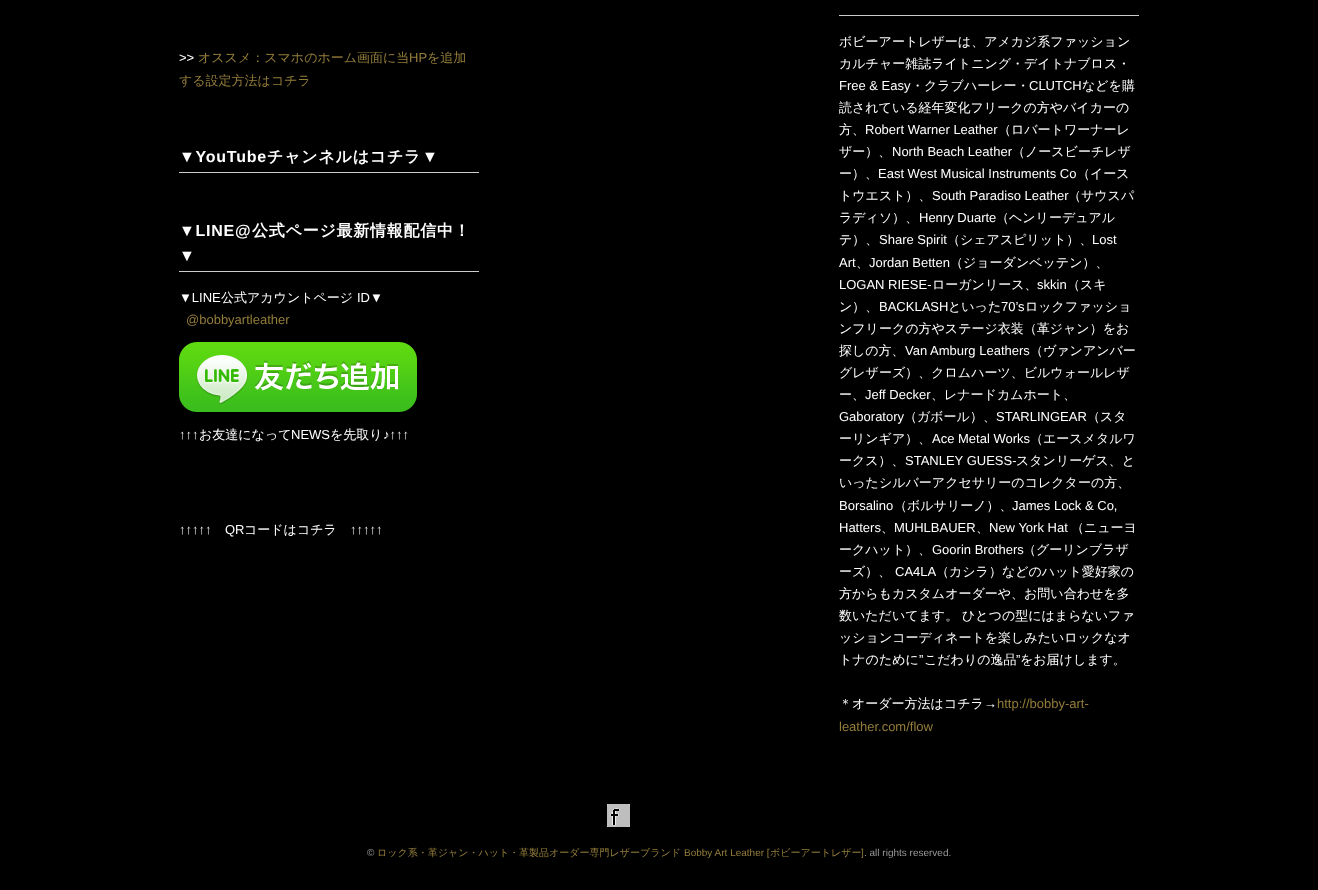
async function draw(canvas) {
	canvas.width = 1318;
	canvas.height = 890;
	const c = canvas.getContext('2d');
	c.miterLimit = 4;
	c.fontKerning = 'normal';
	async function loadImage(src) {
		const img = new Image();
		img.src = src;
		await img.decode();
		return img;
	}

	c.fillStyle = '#000';
	c.fillRect(0, 0, 1318, 890);
	c.font = '13px Liberation Sans';
	c.fillStyle = '#fff';
	c.fillText('>>', 179, 62);
	c.font = '500 13px WenQuanYi Zen Hei';
	c.fillStyle = '#947d3a';
	c.fillText('オススメ：スマホのホーム画面に当', 198, 62);
	c.font = '13px Liberation Sans';
	c.fillText('HP', 409, 62);
	c.font = '500 13px WenQuanYi Zen Hei';
	c.fillText('を追加', 427, 62);
	c.fillText('する設定方法はコチラ', 179, 85);
	c.fillStyle = '#ccc';
	c.fillRect(179, 172, 300, 1);
	c.letterSpacing = '0.75px';
	c.font = 'bold 16px Liberation Sans';
	c.fillStyle = '#fff';
	c.fillText('▼YouTube', 179, 162);
	c.font = 'bold 16px WenQuanYi Zen Hei';
	c.fillText('チャンネルはコチラ', 267, 162);
	c.font = 'bold 16px Liberation Sans';
	c.fillText('▼', 422, 162);
	c.fillStyle = '#ccc';
	c.fillRect(179, 271, 300, 1);
	c.fillStyle = '#fff';
	c.fillText('▼LINE@', 179, 236);
	c.font = 'bold 16px WenQuanYi Zen Hei';
	c.fillText('公式ページ最新情報配信中！', 252, 236);
	c.font = 'bold 16px Liberation Sans';
	c.fillText('▼', 179, 261);
	c.letterSpacing = '0px';
	c.font = '13px Liberation Sans';
	c.fillText('▼LINE', 179, 302);
	c.font = '500 13px WenQuanYi Zen Hei';
	c.fillText('公式アカウントページ', 221, 302);
	c.font = '13px Liberation Sans';
	c.fillText('ID▼', 357, 302);
	c.fillStyle = '#947d3a';
	c.fillText('@bobbyartleather', 186, 324);
	c.drawImage(await loadImage('img1.png'), 179, 342, 238, 70);
	c.fillStyle = '#fff';
	c.fillText('↑↑↑', 179, 439);
	c.font = '500 13px WenQuanYi Zen Hei';
	c.fillText('お友達になって', 199, 439);
	c.font = '13px Liberation Sans';
	c.fillText('NEWS', 291, 439);
	c.font = '500 13px WenQuanYi Zen Hei';
	c.fillText('を先取り', 330, 439);
	c.font = '13px Liberation Sans';
	for (const [text, x, y] of [
		['♪↑↑↑', 383, 439],
		['↑↑↑↑↑', 179, 534],
		['QR', 225, 534],
	]) {
		c.fillText(text, x, y);
	}
	c.font = '500 13px WenQuanYi Zen Hei';
	c.fillText('コードはコチラ', 244, 534);
	c.font = '13px Liberation Sans';
	c.fillText('↑↑↑↑↑', 350, 534);
	c.fillStyle = '#ccc';
	c.fillRect(839, 15, 300, 1);
	c.font = '500 13px WenQuanYi Zen Hei';
	c.fillStyle = '#fff';
	c.fillText('ボビーアートレザーは、アメカジ系ファッション', 839, 46);
	c.fillText('カルチャー雑誌ライトニング・デイトナブロス・', 839, 68);
	c.font = '13px Liberation Sans';
	c.fillText('Free & Easy', 839, 90);
	c.font = '500 13px WenQuanYi Zen Hei';
	c.fillText('・クラブハーレー・', 911, 90);
	c.font = '13px Liberation Sans';
	c.fillText('CLUTCH', 1029, 90);
	c.font = '500 13px WenQuanYi Zen Hei';
	for (const [text, x, y] of [
		['などを購', 1082, 90],
		['読されている経年変化フリークの方やバイカーの', 839, 112],
		['方、', 839, 134],
	]) {
		c.fillText(text, x, y);
	}
	c.font = '13px Liberation Sans';
	c.fillText('Robert Warner Leather', 865, 134);
	c.font = '500 13px WenQuanYi Zen Hei';
	c.fillText('（ロバートワーナーレ', 998, 134);
	c.fillText('ザー）、', 839, 156);
	c.font = '13px Liberation Sans';
	c.fillText('North Beach Leather', 892, 156);
	c.font = '500 13px WenQuanYi Zen Hei';
	c.fillText('（ノースビーチレザ', 1012, 156);
	c.fillText('ー）、', 839, 178);
	c.font = '13px Liberation Sans';
	c.fillText('East West Musical Instruments Co', 878, 178);
	c.font = '500 13px WenQuanYi Zen Hei';
	c.fillText('（イース', 1077, 178);
	c.fillText('トウエスト）、', 839, 200);
	c.font = '13px Liberation Sans';
	c.fillText('South Paradiso Leather', 932, 200);
	c.font = '500 13px WenQuanYi Zen Hei';
	c.fillText('（サウスパ', 1068, 200);
	c.fillText('ラディソ）、', 839, 222);
	c.font = '13px Liberation Sans';
	c.fillText('Henry Duarte', 919, 222);
	c.font = '500 13px WenQuanYi Zen Hei';
	c.fillText('（ヘンリーデュアル', 996, 222);
	c.fillText('テ）、', 839, 244);
	c.font = '13px Liberation Sans';
	c.fillText('Share Spirit', 879, 244);
	c.font = '500 13px WenQuanYi Zen Hei';
	c.fillText('（シェアスピリット）、', 947, 244);
	c.font = '13px Liberation Sans';
	c.fillText('Lost', 1092, 244);
	c.fillText('Art', 839, 267);
	c.font = '500 13px WenQuanYi Zen Hei';
	c.fillText('、', 856, 267);
	c.font = '13px Liberation Sans';
	c.fillText('Jordan Betten', 869, 267);
	c.font = '500 13px WenQuanYi Zen Hei';
	c.fillText('（ジョーダンベッテン）、', 950, 267);
	c.font = '13px Liberation Sans';
	c.fillText('LOGAN RIESE-', 839, 289);
	c.font = '500 13px WenQuanYi Zen Hei';
	c.fillText('ローガンリース、', 932, 289);
	c.font = '13px Liberation Sans';
	c.fillText('skkin', 1037, 289);
	c.font = '500 13px WenQuanYi Zen Hei';
	c.fillText('（スキ', 1067, 289);
	c.fillText('ン）、', 839, 311);
	c.font = '13px Liberation Sans';
	c.fillText('BACKLASH', 879, 311);
	c.font = '500 13px WenQuanYi Zen Hei';
	c.fillText('といった', 948, 311);
	c.font = '13px Liberation Sans';
	c.fillText('70’s', 1001, 311);
	c.font = '500 13px WenQuanYi Zen Hei';
	for (const [text, x, y] of [
		['ロックファッショ', 1025, 311],
		['ンフリークの方やステージ衣装（革ジャン）をお', 839, 333],
		['探しの方、', 839, 355],
	]) {
		c.fillText(text, x, y);
	}
	c.font = '13px Liberation Sans';
	c.fillText('Van Amburg Leathers', 905, 355);
	c.font = '500 13px WenQuanYi Zen Hei';
	for (const [text, x, y] of [
		['（ヴァンアンバー', 1030, 355],
		['グレザーズ）、クロムハーツ、ビルウォールレザ', 839, 377],
		['ー、', 839, 399],
	]) {
		c.fillText(text, x, y);
	}
	c.font = '13px Liberation Sans';
	c.fillText('Jeff Decker', 865, 399);
	c.font = '500 13px WenQuanYi Zen Hei';
	c.fillText('、レナードカムホート、', 931, 399);
	c.font = '13px Liberation Sans';
	c.fillText('Gaboratory', 839, 421);
	c.font = '500 13px WenQuanYi Zen Hei';
	c.fillText('（ガボール）、', 904, 421);
	c.font = '13px Liberation Sans';
	c.fillText('STARLINGEAR', 996, 421);
	c.font = '500 13px WenQuanYi Zen Hei';
	c.fillText('（スタ', 1087, 421);
	c.fillText('ーリンギア）、', 839, 443);
	c.font = '13px Liberation Sans';
	c.fillText('Ace Metal Works', 932, 443);
	c.font = '500 13px WenQuanYi Zen Hei';
	c.fillText('（エースメタルワ', 1030, 443);
	c.fillText('ークス）、', 839, 465);
	c.font = '13px Liberation Sans';
	c.fillText('STANLEY GUESS-', 905, 465);
	c.font = '500 13px WenQuanYi Zen Hei';
	c.fillText('スタンリーゲス、と', 1016, 465);
	c.fillText('いったシルバーアクセサリーのコレクターの方、', 839, 487);
	c.font = '13px Liberation Sans';
	c.fillText('Borsalino', 839, 510);
	c.font = '500 13px WenQuanYi Zen Hei';
	c.fillText('（ボルサリーノ）、', 894, 510);
	c.font = '13px Liberation Sans';
	c.fillText('James Lock & Co,', 1012, 510);
	c.fillText('Hatters', 839, 532);
	c.font = '500 13px WenQuanYi Zen Hei';
	c.fillText('、', 881, 532);
	c.font = '13px Liberation Sans';
	c.fillText('MUHLBAUER', 894, 532);
	c.font = '500 13px WenQuanYi Zen Hei';
	c.fillText('、', 976, 532);
	c.font = '13px Liberation Sans';
	c.fillText('New York Hat', 989, 532);
	c.font = '500 13px WenQuanYi Zen Hei';
	c.fillText('（ニューヨ', 1071, 532);
	c.fillText('ークハット）、', 839, 554);
	c.font = '13px Liberation Sans';
	c.fillText('Goorin Brothers', 932, 554);
	c.font = '500 13px WenQuanYi Zen Hei';
	c.fillText('（グーリンブラザ', 1023, 554);
	c.fillText('ーズ）、', 839, 576);
	c.font = '13px Liberation Sans';
	c.fillText('CA4LA', 895, 576);
	c.font = '500 13px WenQuanYi Zen Hei';
	for (const [text, x, y] of [
		['（カシラ）などのハット愛好家の', 936, 576],
		['方からもカスタムオーダーや、お問い合わせを多', 839, 598],
		['数いただいてます。 ひとつの型にはまらないファ', 839, 620],
		['ッションコーディネートを楽しみたいロックなオ', 839, 642],
		['トナのために', 839, 664],
	]) {
		c.fillText(text, x, y);
	}
	c.font = '13px Liberation Sans';
	c.fillText('”', 919, 664);
	c.font = '500 13px WenQuanYi Zen Hei';
	c.fillText('こだわりの逸品', 924, 664);
	c.font = '13px Liberation Sans';
	c.fillText('”', 1016, 664);
	c.font = '500 13px WenQuanYi Zen Hei';
	c.fillText('をお届けします。', 1020, 664);
	c.fillText('＊オーダー方法はコチラ', 839, 708);
	c.font = '13px Liberation Sans';
	c.fillText('→', 984, 708);
	c.fillStyle = '#947d3a';
	c.fillText('http://bobby-art-', 997, 708);
	c.fillText('leather.com/flow', 839, 731);
	c.drawImage(await loadImage('img2.png'), 607, 804, 23, 23);
	c.font = '10px Liberation Sans';
	c.fillStyle = '#999';
	c.fillText('©', 367, 856);
	c.font = '500 10px WenQuanYi Zen Hei';
	c.fillStyle = '#947d3a';
	c.fillText('ロック系・革ジャン・ハット・革製品オーダー専門レザーブランド', 377, 856);
	c.font = '10px Liberation Sans';
	c.fillText('Bobby Art Leather [', 684, 856);
	c.font = '500 10px WenQuanYi Zen Hei';
	c.fillText('ボビーアートレザー', 770, 856);
	c.font = '10px Liberation Sans';
	c.fillText(']', 861, 856);
	c.fillStyle = '#999';
	c.fillText('. all rights reserved.', 864, 856);
}

draw(document.querySelector('canvas'));
